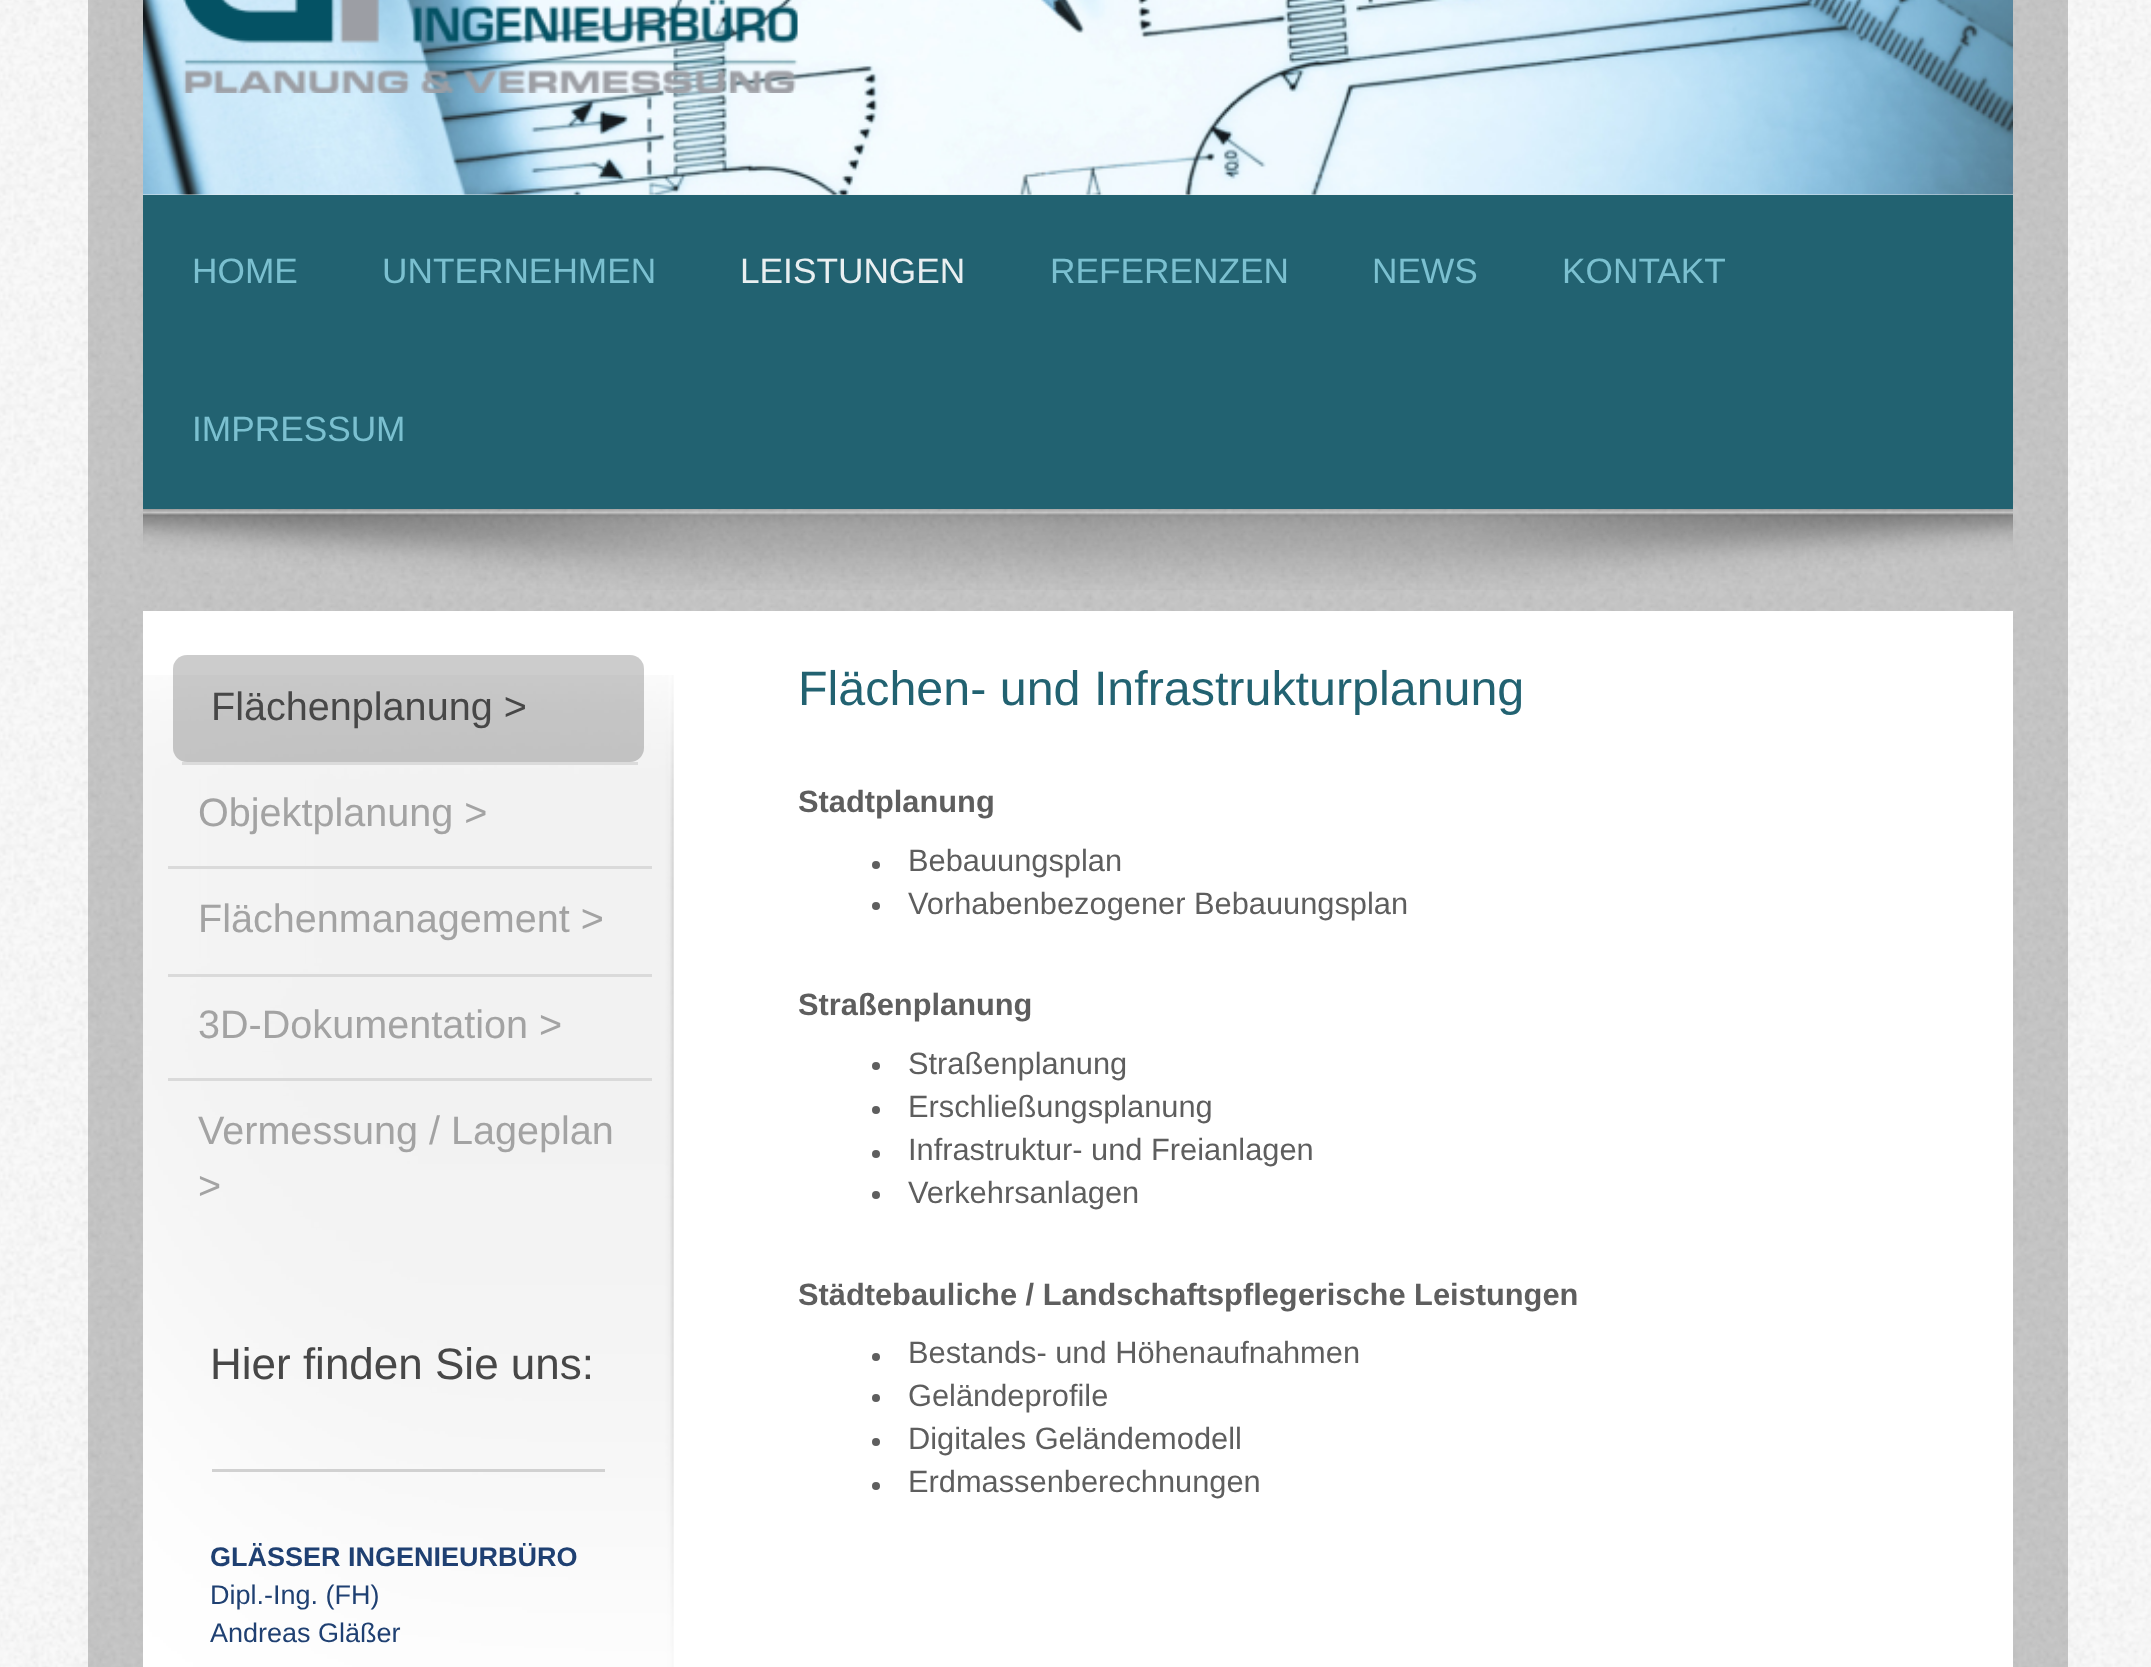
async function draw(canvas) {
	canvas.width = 2151;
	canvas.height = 1667;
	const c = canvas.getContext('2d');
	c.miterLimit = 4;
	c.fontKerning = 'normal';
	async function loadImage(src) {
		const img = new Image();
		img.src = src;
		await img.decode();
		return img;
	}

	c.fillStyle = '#f9f9f9';
	c.fillRect(0, 0, 2151, 1667);
	c.fillStyle = '#c7c7c7';
	c.fillRect(88, 0, 1980, 1667);
	c.drawImage(await loadImage('img1.png'), 0, 0, 2151, 1667);
	c.fillStyle = '#eee';
	c.fillRect(143, 194, 1870, 1);
	c.drawImage(await loadImage('img2.png'), 143, 0, 1870, 195);
	c.drawImage(await loadImage('img3.png'), 183, 0, 615, 93);
	c.drawImage(await loadImage('img4.png'), 143, 509, 1870, 81);
	c.fillStyle = '#226271';
	c.fillRect(143, 195, 1870, 314);
	c.font = '35.25px Liberation Sans';
	c.fillStyle = '#7bc0d0';
	c.fillText('HOME', 192, 283);
	c.fillText('UNTERNEHMEN', 382, 283);
	c.fillStyle = '#e9eff1';
	c.fillText('LEISTUNGEN', 740, 283);
	c.fillStyle = '#7bc0d0';
	for (const [text, x, y] of [
		['REFERENZEN', 1050, 283],
		['NEWS', 1372, 283],
		['KONTAKT', 1562, 283],
		['IMPRESSUM', 192, 441],
	]) {
		c.fillText(text, x, y);
	}
	c.fillStyle = '#fff';
	c.fillRect(143, 611, 1870, 1056);
	c.drawImage(await loadImage('img5.png'), 143, 675, 531, 992);
	c.fillStyle = '#dbdbdb';
	c.fillRect(182, 762, 456, 3);
	c.fillStyle = '#00000033';
	c.beginPath();
	c.roundRect(173, 655, 471, 107, 14);
	c.fill();
	c.font = '39.6px Liberation Sans';
	c.fillStyle = '#474747';
	c.fillText('Flächenplanung >', 211, 720);
	c.fillStyle = '#dadada';
	c.fillRect(168, 866, 484, 3);
	c.fillStyle = '#a3a3a3';
	c.fillText('Objektplanung >', 198, 826);
	c.fillStyle = '#dadada';
	c.fillRect(168, 974, 484, 3);
	c.fillStyle = '#a3a3a3';
	c.fillText('Flächenmanagement >', 198, 932);
	c.fillStyle = '#dadada';
	c.fillRect(168, 1078, 484, 3);
	c.fillStyle = '#a3a3a3';
	for (const [text, x, y] of [
		['3D-Dokumentation >', 198, 1038],
		['Vermessung / Lageplan', 198, 1144],
		['>', 198, 1199],
	]) {
		c.fillText(text, x, y);
	}
	c.font = '44px Liberation Sans';
	c.fillStyle = '#474747';
	c.fillText('Hier finden Sie uns:', 210, 1379);
	c.fillStyle = '#d1d1d1';
	c.fillRect(212, 1469, 393, 3);
	c.font = 'bold 27px Liberation Sans';
	c.fillStyle = '#1f4072';
	c.fillText('GLÄSSER INGENIEURBÜRO', 210, 1566);
	c.font = '27px Liberation Sans';
	c.fillText('Dipl.-Ing. (FH)', 210, 1604);
	c.fillText('Andreas Gläßer', 210, 1642);
	c.font = '48.4px Liberation Sans';
	c.fillStyle = '#226271';
	c.fillText('Flächen- und Infrastrukturplanung', 798, 705);
	c.font = 'bold 30.8px Liberation Sans';
	c.fillStyle = '#5e5e5e';
	c.fillText('Stadtplanung', 798, 812);
	c.beginPath();
	c.arc(876, 865, 4, 0, 2 * Math.PI);
	c.fill();
	c.font = '30.8px Liberation Sans';
	c.fillText('Bebauungsplan', 908, 871);
	c.beginPath();
	c.arc(876, 906, 4, 0, 2 * Math.PI);
	c.fill();
	c.fillText('Vorhabenbezogener Bebauungsplan', 908, 914);
	c.font = 'bold 30.8px Liberation Sans';
	c.fillText('Straßenplanung', 798, 1015);
	c.beginPath();
	c.arc(876, 1066, 4, 0, 2 * Math.PI);
	c.fill();
	c.font = '30.8px Liberation Sans';
	c.fillText('Straßenplanung', 908, 1074);
	c.beginPath();
	c.arc(876, 1110, 4, 0, 2 * Math.PI);
	c.fill();
	c.fillText('Erschließungsplanung', 908, 1117);
	c.beginPath();
	c.arc(876, 1154, 4, 0, 2 * Math.PI);
	c.fill();
	c.fillText('Infrastruktur- und Freianlagen', 908, 1160);
	c.beginPath();
	c.arc(876, 1195, 4, 0, 2 * Math.PI);
	c.fill();
	c.fillText('Verkehrsanlagen', 908, 1203);
	c.font = 'bold 30.8px Liberation Sans';
	c.fillText('Städtebauliche / Landschaftspflegerische Leistungen', 798, 1305);
	c.beginPath();
	c.arc(876, 1357, 4, 0, 2 * Math.PI);
	c.fill();
	c.font = '30.8px Liberation Sans';
	c.fillText('Bestands- und Höhenaufnahmen', 908, 1363);
	c.beginPath();
	c.arc(876, 1398, 4, 0, 2 * Math.PI);
	c.fill();
	c.fillText('Geländeprofile', 908, 1406);
	c.beginPath();
	c.arc(876, 1442, 4, 0, 2 * Math.PI);
	c.fill();
	c.fillText('Digitales Geländemodell', 908, 1449);
	c.beginPath();
	c.arc(876, 1486, 4, 0, 2 * Math.PI);
	c.fill();
	c.fillText('Erdmassenberechnungen', 908, 1492);
}

draw(document.querySelector('canvas'));
